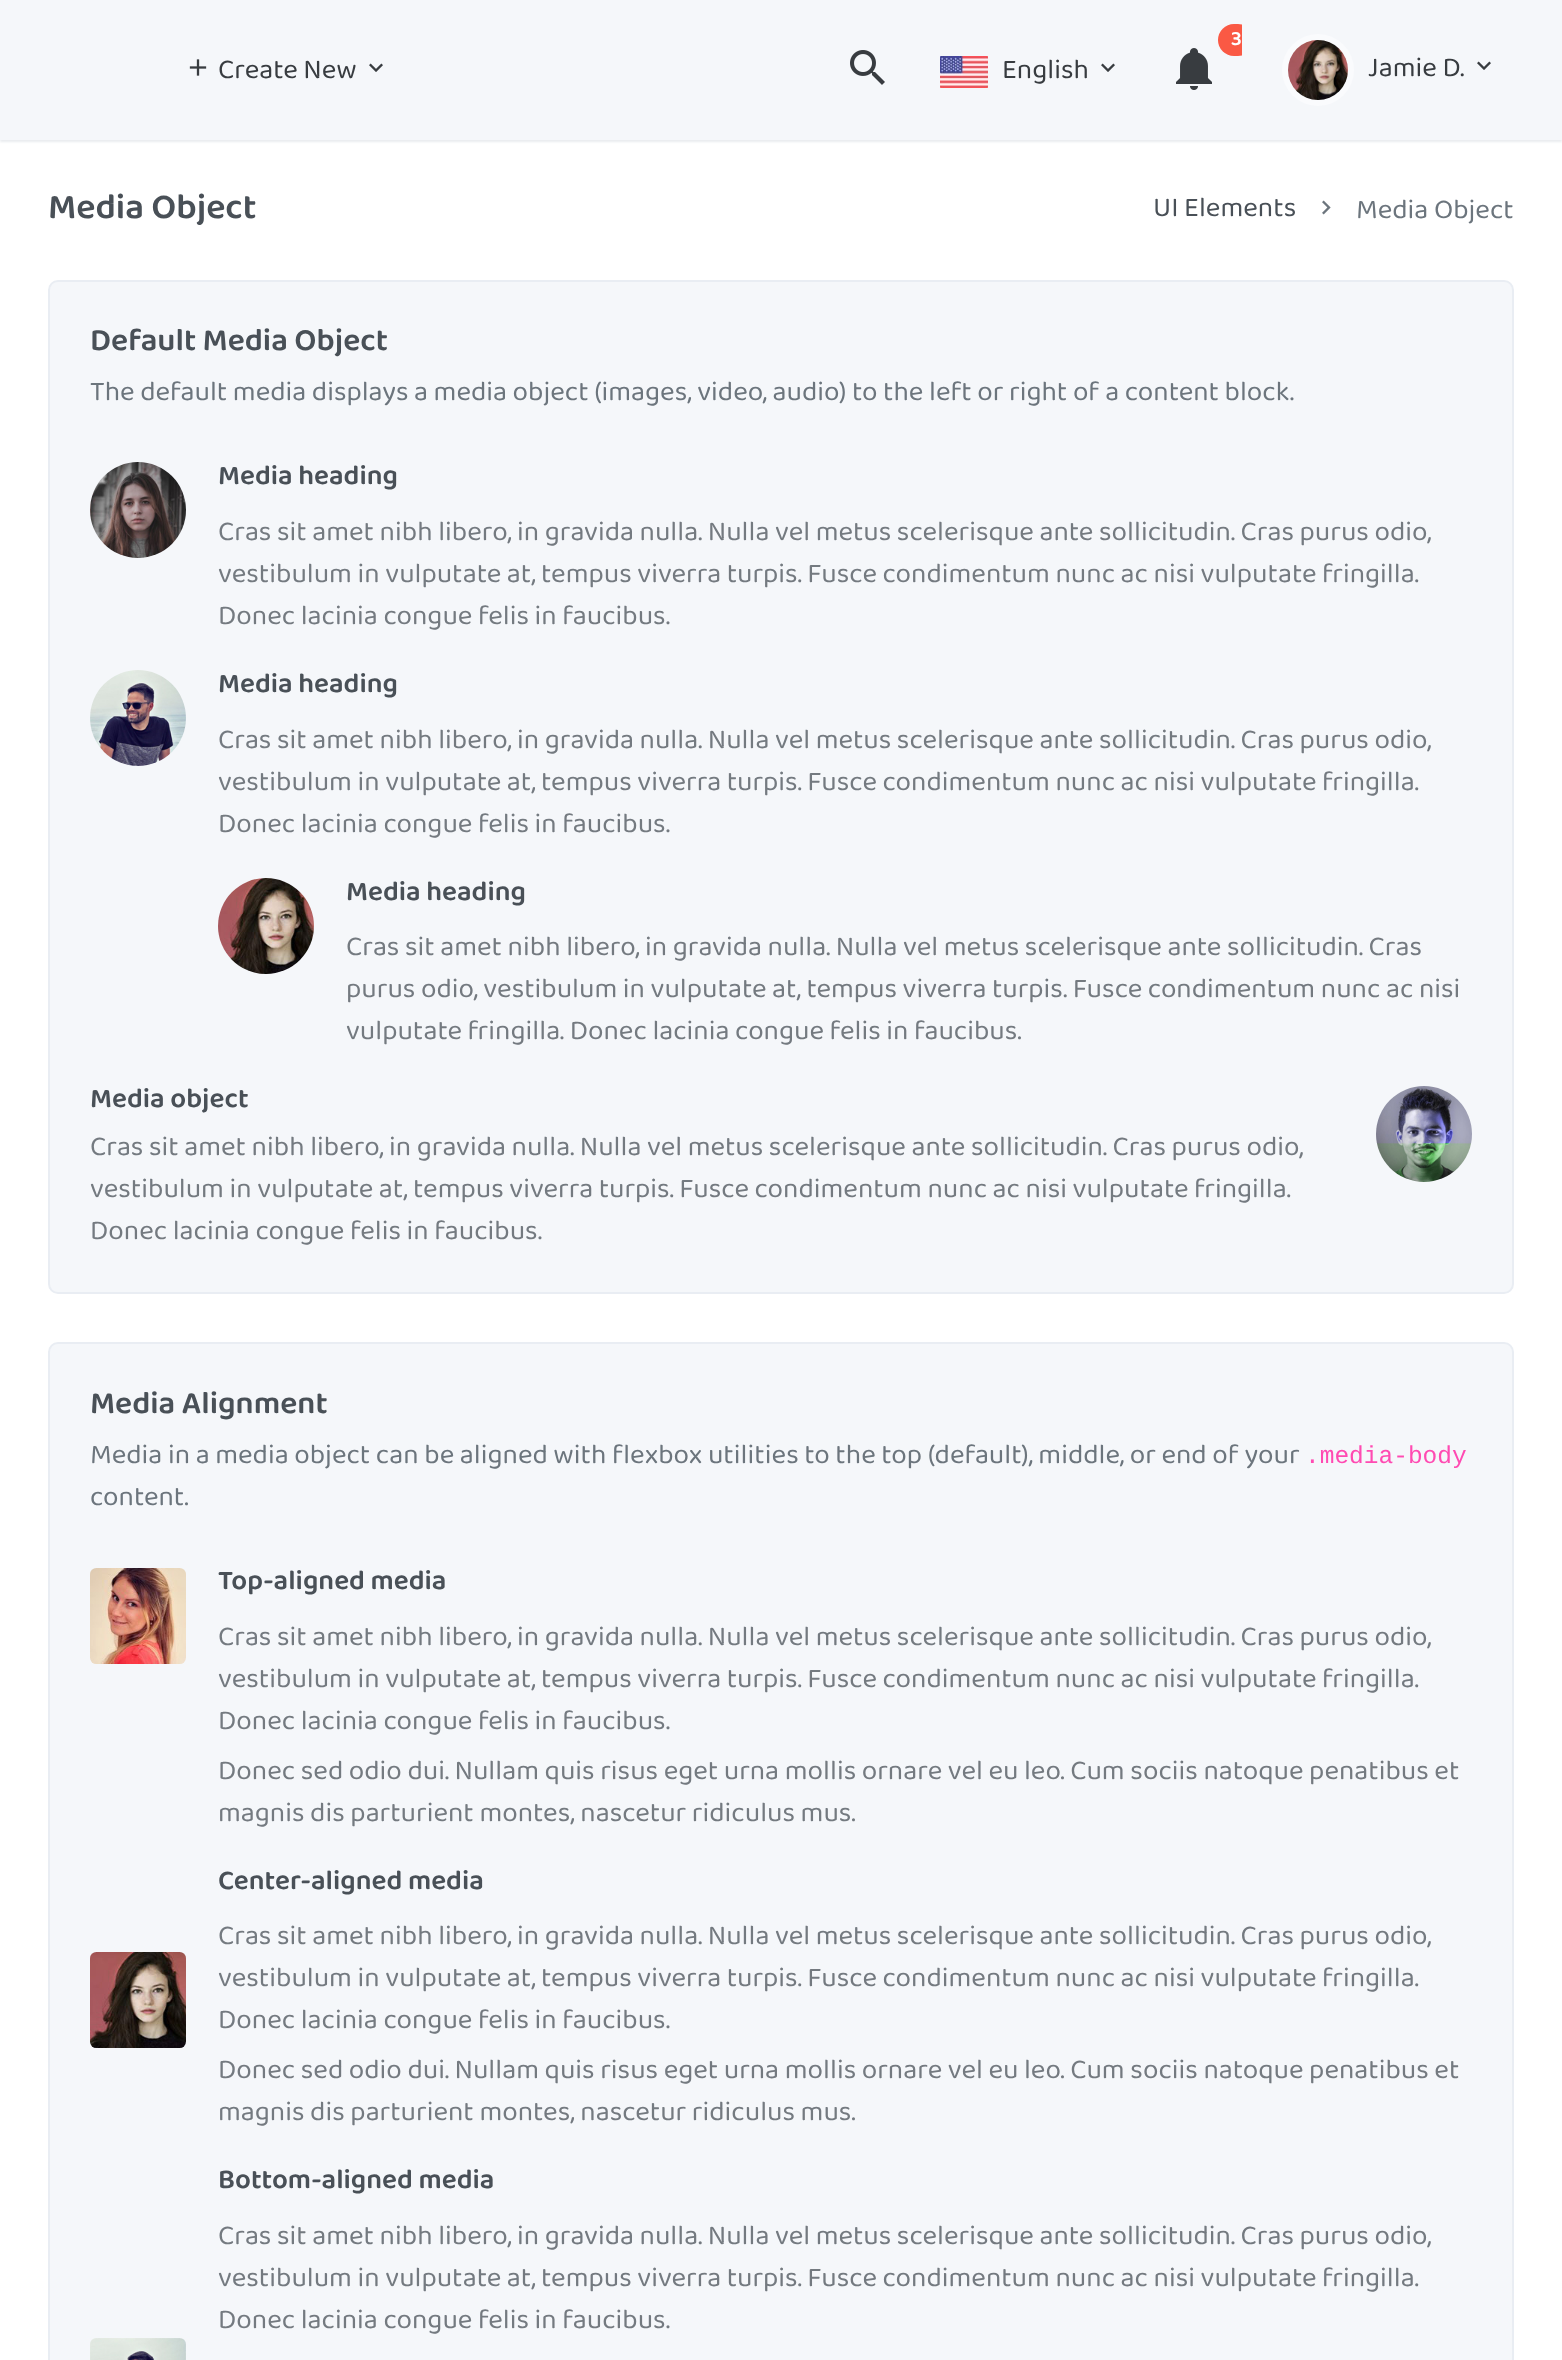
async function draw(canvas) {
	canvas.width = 1562;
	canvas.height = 2360;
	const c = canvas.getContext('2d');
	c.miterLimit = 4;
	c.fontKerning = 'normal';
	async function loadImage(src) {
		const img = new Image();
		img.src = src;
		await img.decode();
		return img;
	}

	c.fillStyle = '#fff';
	c.fillRect(0, 0, 1562, 2360);
	c.fillStyle = '#e9ecef';
	c.filter = 'blur(1px)';
	c.beginPath();
	c.rect(0, 2, 1562, 140);
	c.fill();
	c.filter = 'none';
	c.fillStyle = '#f5f7fa';
	c.fillRect(0, 0, 1562, 140);
	c.drawImage(await loadImage('img1.png'), 189, 59, 18, 17);
	c.font = '28px "Baloo Paaji 2"';
	c.fillStyle = '#383c40';
	c.fillText('Create New', 218, 78);
	c.drawImage(await loadImage('img2.png'), 369, 63, 14, 9);
	c.save();
	c.beginPath();
	c.roundRect(1146, 0, 96, 140, 6);
	c.clip();
	c.fillStyle = '#fa5944';
	c.beginPath();
	c.roundRect(1218, 24, 36, 32, 16);
	c.fill();
	c.restore();
	c.font = '600 21px "Baloo Paaji 2"';
	c.fillStyle = '#fff';
	c.fillText('3', 1231, 45);
	c.drawImage(await loadImage('img3.png'), 1176, 48, 36, 42);
	c.drawImage(await loadImage('img4.png'), 850, 50, 35, 35);
	c.drawImage(await loadImage('img5.png'), 940, 56, 48, 32);
	c.font = '28px "Baloo Paaji 2"';
	c.fillStyle = '#383c40';
	c.fillText('English', 1002, 78);
	c.drawImage(await loadImage('img2.png'), 1101, 63, 14, 9);
	c.fillStyle = '#fafbfd';
	c.beginPath();
	c.arc(1318, 70, 36, 0, 2 * Math.PI);
	c.fill();
	c.drawImage(await loadImage('img6.png'), 1288, 40, 60, 60);
	c.fillStyle = '#383c40';
	c.fillText('Jamie D.', 1368, 76);
	c.drawImage(await loadImage('img2.png'), 1477, 61, 14, 9);
	c.font = '600 36px "Baloo Paaji 2"';
	c.fillStyle = '#495057';
	c.fillText('Media Object', 48, 218);
	c.font = '28px "Baloo Paaji 2"';
	c.fillText('UI Elements', 1153, 216);
	c.drawImage(await loadImage('img7.png'), 1322, 200, 9, 15);
	c.fillStyle = '#6c757d';
	c.fillText('Media Object', 1356, 218);
	c.fillStyle = '#f5f7fa';
	c.beginPath();
	c.roundRect(49, 281, 1464, 1012, 9);
	c.fill();
	c.strokeStyle = '#e9edf3';
	c.lineWidth = 2;
	c.stroke();
	c.font = '600 32px "Baloo Paaji 2"';
	c.fillStyle = '#495057';
	c.fillText('Default Media Object', 90, 350);
	c.font = '28px "Baloo Paaji 2"';
	c.fillStyle = '#6c757d';
	c.fillText('The default media displays a media object (images, video, audio) to the left or right of a content block.', 90, 400);
	c.drawImage(await loadImage('img8.png'), 90, 462, 96, 96);
	c.font = '600 28px "Baloo Paaji 2"';
	c.fillStyle = '#495057';
	c.fillText('Media heading', 218, 484);
	c.font = '28px "Baloo Paaji 2"';
	c.fillStyle = '#747a80';
	for (const [text, x, y] of [
		['Cras sit amet nibh libero, in gravida nulla. Nulla vel metus scelerisque ante sollicitudin. Cras purus odio,', 218, 540],
		['vestibulum in vulputate at, tempus viverra turpis. Fusce condimentum nunc ac nisi vulputate fringilla.', 218, 582],
		['Donec lacinia congue felis in faucibus.', 218, 624],
	]) {
		c.fillText(text, x, y);
	}
	c.drawImage(await loadImage('img9.png'), 90, 670, 96, 96);
	c.font = '600 28px "Baloo Paaji 2"';
	c.fillStyle = '#495057';
	c.fillText('Media heading', 218, 692);
	c.font = '28px "Baloo Paaji 2"';
	c.fillStyle = '#747a80';
	for (const [text, x, y] of [
		['Cras sit amet nibh libero, in gravida nulla. Nulla vel metus scelerisque ante sollicitudin. Cras purus odio,', 218, 748],
		['vestibulum in vulputate at, tempus viverra turpis. Fusce condimentum nunc ac nisi vulputate fringilla.', 218, 790],
		['Donec lacinia congue felis in faucibus.', 218, 832],
	]) {
		c.fillText(text, x, y);
	}
	c.drawImage(await loadImage('img10.png'), 218, 878, 96, 96);
	c.font = '600 28px "Baloo Paaji 2"';
	c.fillStyle = '#495057';
	c.fillText('Media heading', 346, 900);
	c.font = '28px "Baloo Paaji 2"';
	c.fillStyle = '#747a80';
	for (const [text, x, y] of [
		['Cras sit amet nibh libero, in gravida nulla. Nulla vel metus scelerisque ante sollicitudin. Cras', 346, 955],
		['purus odio, vestibulum in vulputate at, tempus viverra turpis. Fusce condimentum nunc ac nisi', 346, 997],
		['vulputate fringilla. Donec lacinia congue felis in faucibus.', 346, 1039],
	]) {
		c.fillText(text, x, y);
	}
	c.font = '600 28px "Baloo Paaji 2"';
	c.fillStyle = '#495057';
	c.fillText('Media object', 90, 1107);
	c.font = '28px "Baloo Paaji 2"';
	c.fillStyle = '#747a80';
	for (const [text, x, y] of [
		['Cras sit amet nibh libero, in gravida nulla. Nulla vel metus scelerisque ante sollicitudin. Cras purus odio,', 90, 1155],
		['vestibulum in vulputate at, tempus viverra turpis. Fusce condimentum nunc ac nisi vulputate fringilla.', 90, 1197],
		['Donec lacinia congue felis in faucibus.', 90, 1239],
	]) {
		c.fillText(text, x, y);
	}
	c.drawImage(await loadImage('img11.png'), 1376, 1086, 96, 96);
	c.fillStyle = '#f5f7fa';
	c.beginPath();
	c.roundRect(49, 1343, 1464, 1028, 9);
	c.fill();
	c.stroke();
	c.font = '600 32px "Baloo Paaji 2"';
	c.fillStyle = '#495057';
	c.fillText('Media Alignment', 90, 1413);
	c.font = '28px "Baloo Paaji 2"';
	c.fillStyle = '#6c757d';
	c.fillText('Media in a media object can be aligned with flexbox utilities to the top (default), middle, or end of your', 90, 1463);
	c.font = '24.5px Liberation Mono';
	c.fillStyle = '#ff4bb2';
	c.fillText('.media-body', 1305, 1463);
	c.font = '28px "Baloo Paaji 2"';
	c.fillStyle = '#6c757d';
	c.fillText('content.', 90, 1505);
	c.drawImage(await loadImage('img12.png'), 90, 1568, 96, 96);
	c.font = '600 28px "Baloo Paaji 2"';
	c.fillStyle = '#495057';
	c.fillText('Top-aligned media', 218, 1589);
	c.font = '28px "Baloo Paaji 2"';
	c.fillStyle = '#747a80';
	for (const [text, x, y] of [
		['Cras sit amet nibh libero, in gravida nulla. Nulla vel metus scelerisque ante sollicitudin. Cras purus odio,', 218, 1645],
		['vestibulum in vulputate at, tempus viverra turpis. Fusce condimentum nunc ac nisi vulputate fringilla.', 218, 1687],
		['Donec lacinia congue felis in faucibus.', 218, 1729],
		['Donec sed odio dui. Nullam quis risus eget urna mollis ornare vel eu leo. Cum sociis natoque penatibus et', 218, 1779],
		['magnis dis parturient montes, nascetur ridiculus mus.', 218, 1821],
	]) {
		c.fillText(text, x, y);
	}
	c.drawImage(await loadImage('img13.png'), 90, 1952, 96, 96);
	c.font = '600 28px "Baloo Paaji 2"';
	c.fillStyle = '#495057';
	c.fillText('Center-aligned media', 218, 1889);
	c.font = '28px "Baloo Paaji 2"';
	c.fillStyle = '#747a80';
	for (const [text, x, y] of [
		['Cras sit amet nibh libero, in gravida nulla. Nulla vel metus scelerisque ante sollicitudin. Cras purus odio,', 218, 1944],
		['vestibulum in vulputate at, tempus viverra turpis. Fusce condimentum nunc ac nisi vulputate fringilla.', 218, 1986],
		['Donec lacinia congue felis in faucibus.', 218, 2028],
		['Donec sed odio dui. Nullam quis risus eget urna mollis ornare vel eu leo. Cum sociis natoque penatibus et', 218, 2078],
		['magnis dis parturient montes, nascetur ridiculus mus.', 218, 2120],
	]) {
		c.fillText(text, x, y);
	}
	c.font = '600 28px "Baloo Paaji 2"';
	c.fillStyle = '#495057';
	c.fillText('Bottom-aligned media', 218, 2188);
	c.font = '28px "Baloo Paaji 2"';
	c.fillStyle = '#747a80';
	for (const [text, x, y] of [
		['Cras sit amet nibh libero, in gravida nulla. Nulla vel metus scelerisque ante sollicitudin. Cras purus odio,', 218, 2244],
		['vestibulum in vulputate at, tempus viverra turpis. Fusce condimentum nunc ac nisi vulputate fringilla.', 218, 2286],
		['Donec lacinia congue felis in faucibus.', 218, 2328],
	]) {
		c.fillText(text, x, y);
	}
	c.drawImage(await loadImage('img14.png'), 90, 2338, 96, 22);
}

draw(document.querySelector('canvas'));
